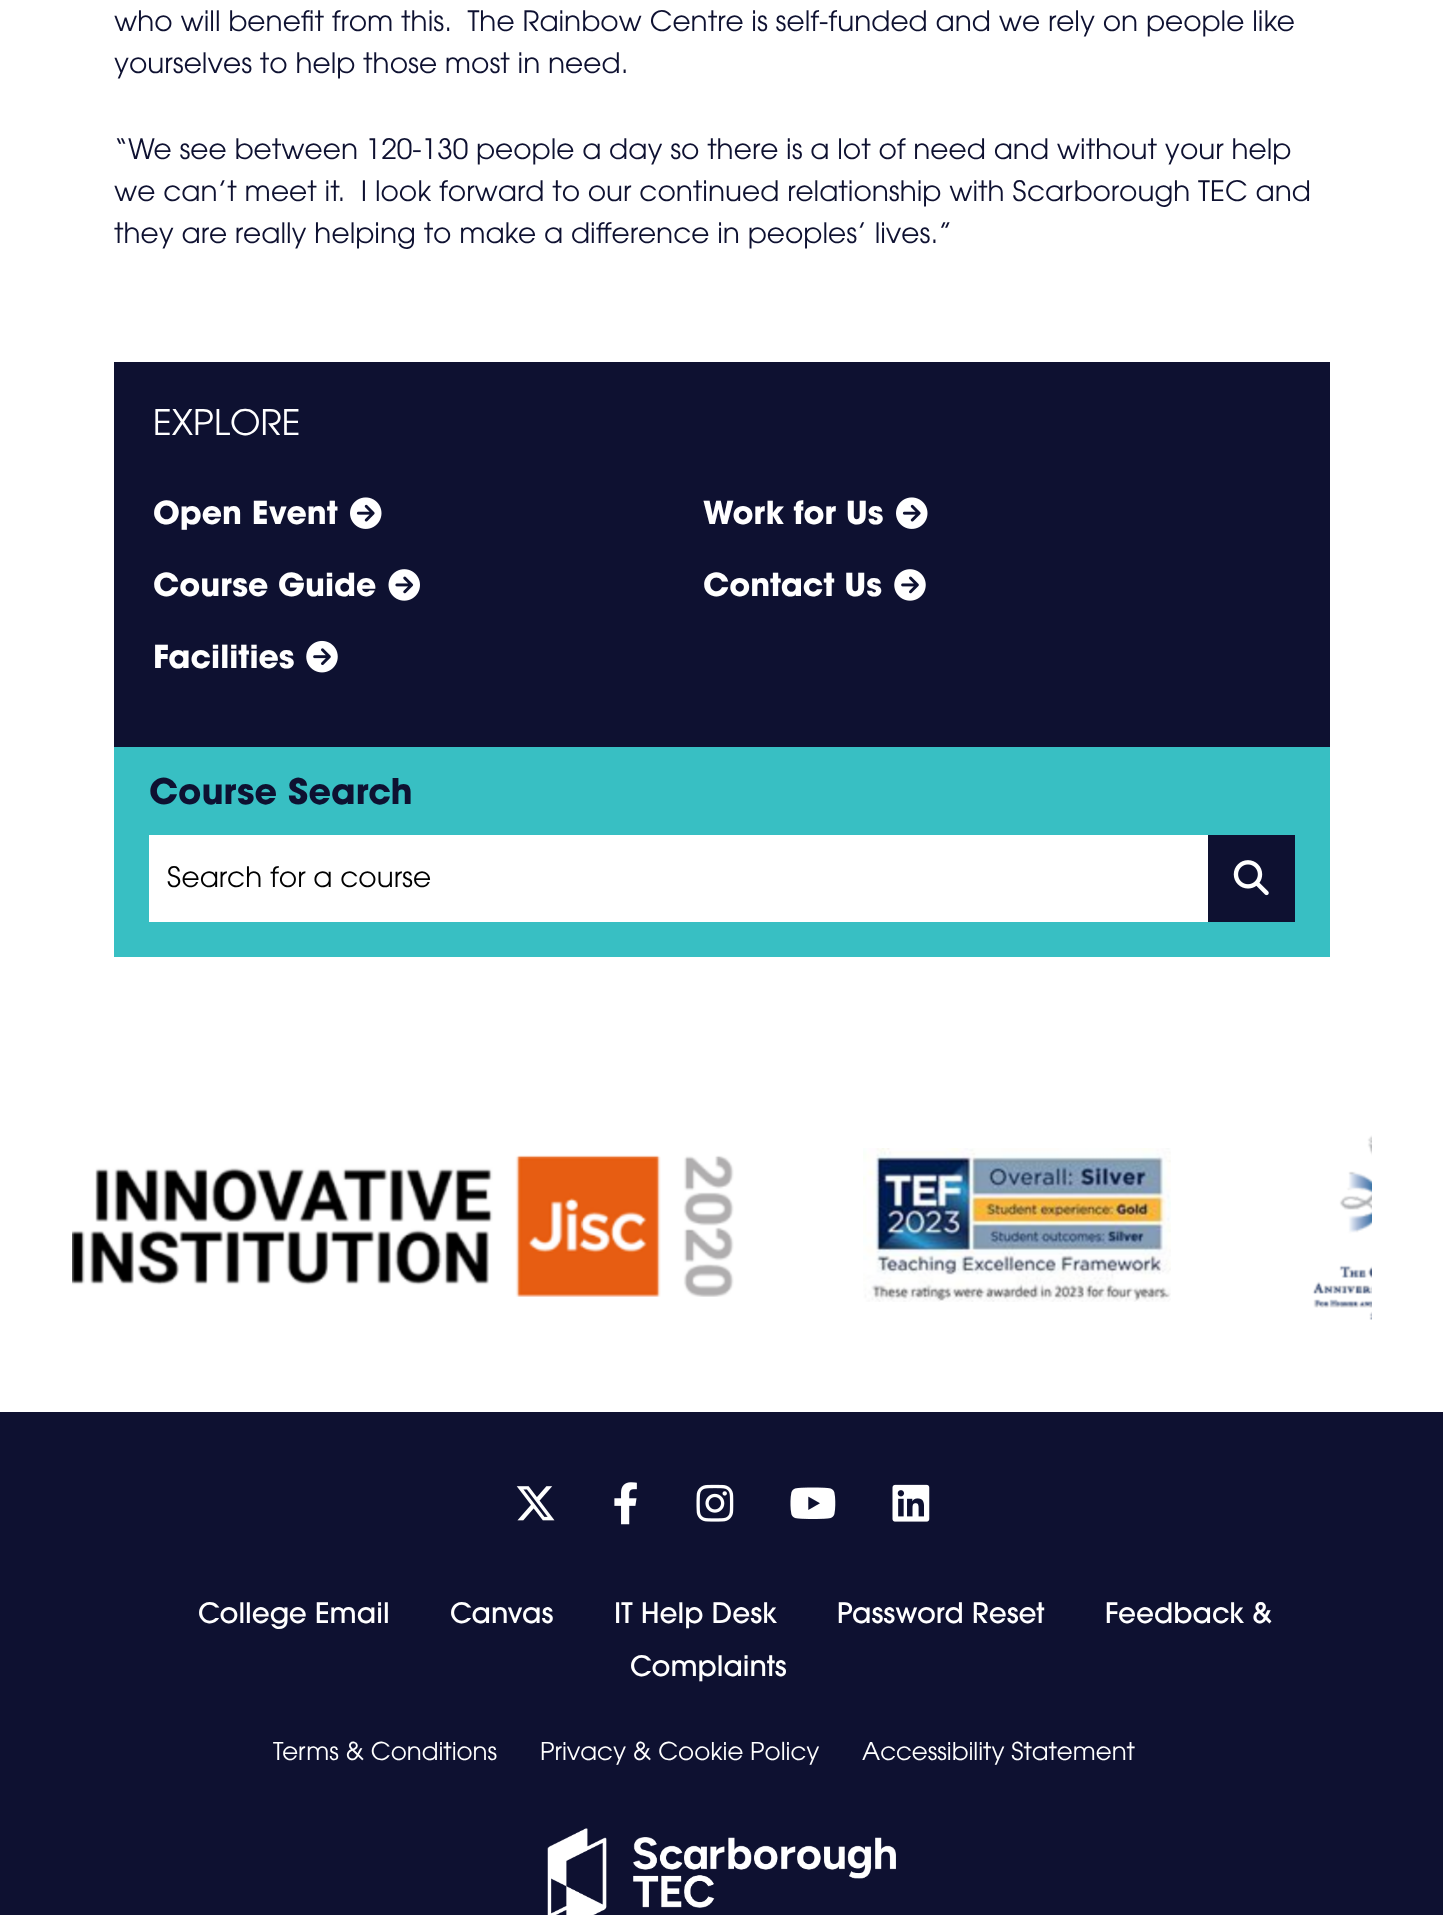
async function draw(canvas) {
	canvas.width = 1443;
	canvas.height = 1915;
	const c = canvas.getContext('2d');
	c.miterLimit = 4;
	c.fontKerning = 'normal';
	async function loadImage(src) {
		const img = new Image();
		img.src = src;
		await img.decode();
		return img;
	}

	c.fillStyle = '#fff';
	c.fillRect(0, 0, 1443, 1915);
	c.font = '300 28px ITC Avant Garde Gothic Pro';
	c.fillStyle = '#0e1131';
	for (const [text, x, y] of [
		['who will benefit from this.  The Rainbow Centre is self-funded and we rely on people like', 114, 31],
		['yourselves to help those most in need.', 114, 73],
		['“We see between 120-130 people a day so there is a lot of need and without your help', 114, 159],
		['we can’t meet it.  I look forward to our continued relationship with Scarborough TEC and', 114, 201],
		['they are really helping to make a difference in peoples’ lives.”', 114, 243],
	]) {
		c.fillText(text, x, y);
	}
	c.fillRect(114, 362, 1216, 385);
	c.font = '300 35px ITC Avant Garde Gothic Pro';
	c.fillStyle = '#fff';
	c.fillText('EXPLORE', 153, 435);
	c.font = 'bold 31.5px ITC Avant Garde Gothic Pro';
	c.fillText('Open Event', 153, 524);
	c.drawImage(await loadImage('img1.png'), 350, 497, 32, 32);
	c.fillText('Course Guide', 153, 596);
	c.drawImage(await loadImage('img2.png'), 388, 569, 32, 32);
	c.fillText('Facilities', 153, 668);
	c.drawImage(await loadImage('img3.png'), 306, 640, 32, 33);
	c.fillText('Work for Us', 703, 524);
	c.drawImage(await loadImage('img1.png'), 896, 497, 32, 32);
	c.fillText('Contact Us', 703, 596);
	c.drawImage(await loadImage('img4.png'), 894, 569, 32, 32);
	c.fillStyle = '#38bfc3';
	c.fillRect(114, 747, 1216, 210);
	c.font = 'bold 35px ITC Avant Garde Gothic Pro';
	c.fillStyle = '#0e1131';
	c.fillText('Course Search', 149, 804);
	c.fillStyle = '#fff';
	c.fillRect(149, 835, 1059, 87);
	c.font = '300 28px ITC Avant Garde Gothic Pro';
	c.fillStyle = '#000';
	c.fillText('Search for a course', 167, 887);
	c.fillStyle = '#0e1131';
	c.fillRect(1208, 835, 87, 87);
	c.drawImage(await loadImage('img5.png'), 1233, 860, 36, 36);
	c.drawImage(await loadImage('img6.png'), 72, 1155, 662, 142);
	c.drawImage(await loadImage('img7.png'), 863, 1148, 308, 154);
	c.drawImage(await loadImage('img8.png'), 1312, 1135, 60, 185);
	c.fillRect(0, 1412, 1443, 503);
	c.drawImage(await loadImage('img9.png'), 516, 1486, 39, 35);
	c.drawImage(await loadImage('img10.png'), 614, 1482, 23, 43);
	c.drawImage(await loadImage('img11.png'), 696, 1484, 38, 38);
	c.drawImage(await loadImage('img12.png'), 790, 1487, 46, 32);
	c.drawImage(await loadImage('img13.png'), 892, 1484, 38, 38);
	c.font = '500 28px ITC Avant Garde Gothic Pro';
	c.fillStyle = '#fff';
	for (const [text, x, y] of [
		['College Email', 198, 1623],
		['Canvas', 450, 1623],
		['IT Help Desk', 614, 1623],
		['Password Reset', 837, 1623],
		['Feedback &', 1105, 1623],
		['Complaints', 630, 1676],
	]) {
		c.fillText(text, x, y);
	}
	c.font = '300 24.5px ITC Avant Garde Gothic Pro';
	for (const [text, x, y] of [
		['Terms & Conditions', 273, 1760],
		['Privacy & Cookie Policy', 540, 1760],
		['Accessibility Statement', 862, 1760],
	]) {
		c.fillText(text, x, y);
	}
	c.drawImage(await loadImage('img14.png'), 547, 1828, 349, 87);
}

draw(document.querySelector('canvas'));
